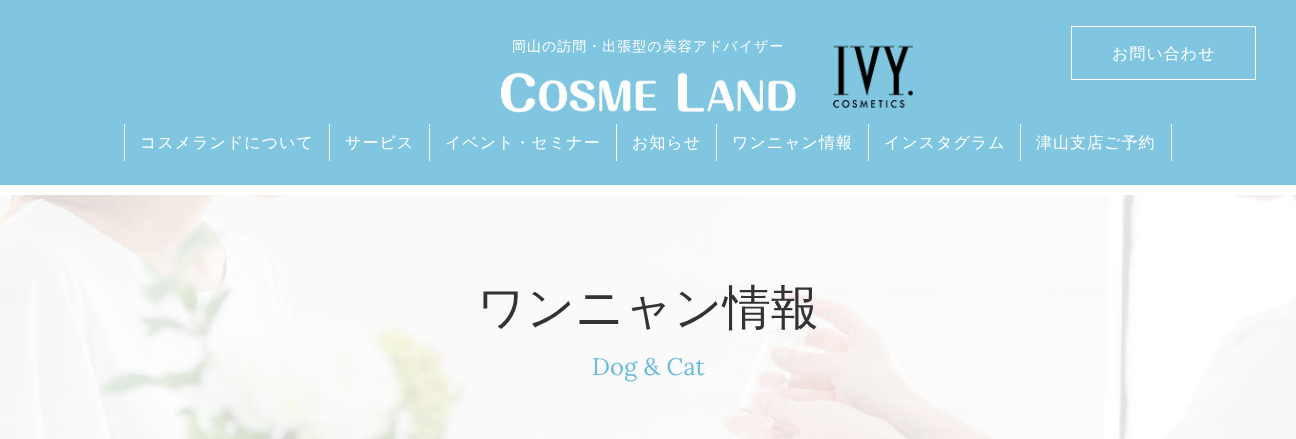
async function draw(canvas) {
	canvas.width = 1296;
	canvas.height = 439;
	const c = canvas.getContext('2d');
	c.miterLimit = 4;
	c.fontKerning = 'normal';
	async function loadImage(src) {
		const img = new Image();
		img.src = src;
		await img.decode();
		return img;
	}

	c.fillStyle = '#fff';
	c.fillRect(0, 0, 1296, 439);
	c.fillStyle = '#81c6e0';
	c.fillRect(0, 0, 1296, 185);
	c.letterSpacing = '1px';
	c.font = '500 14px WenQuanYi Zen Hei';
	c.fillStyle = '#fff';
	c.fillText('岡山の訪問・出張型の美容アドバイザー', 512, 51);
	c.drawImage(await loadImage('img1.png'), 833, 45, 80, 64);
	c.drawImage(await loadImage('img2.png'), 500, 72, 296, 41);
	c.strokeStyle = '#fff';
	c.strokeRect(1071.5, 26.5, 184, 53);
	c.font = '500 16px WenQuanYi Zen Hei';
	c.fillText('お問い合わせ', 1112, 59);
	c.fillRect(124, 124, 1, 37);
	c.fillText('コスメランドについて', 140, 148);
	c.fillRect(329, 124, 1, 37);
	c.fillText('サービス', 345, 148);
	c.fillRect(429, 124, 1, 37);
	c.fillText('イベント・セミナー', 445, 148);
	c.fillRect(616, 124, 1, 37);
	c.fillText('お知らせ', 632, 148);
	c.fillRect(716, 124, 1, 37);
	c.fillText('ワンニャン情報', 732, 148);
	c.fillRect(868, 124, 1, 37);
	c.fillText('インスタグラム', 884, 148);
	c.fillRect(1171, 124, 1, 37);
	c.fillRect(1020, 124, 1, 37);
	c.fillText('津山支店ご予約', 1036, 148);
	c.drawImage(await loadImage('img3.png'), 0, 195, 1296, 244);
	c.letterSpacing = '0px';
	c.font = '500 48px WenQuanYi Zen Hei';
	c.fillStyle = '#333';
	c.fillText('ワンニャン情報', 477, 324);
	c.font = '24px Lora';
	c.fillStyle = '#6bbcda';
	c.fillText('Dog & Cat', 592, 375);
}

draw(document.querySelector('canvas'));
